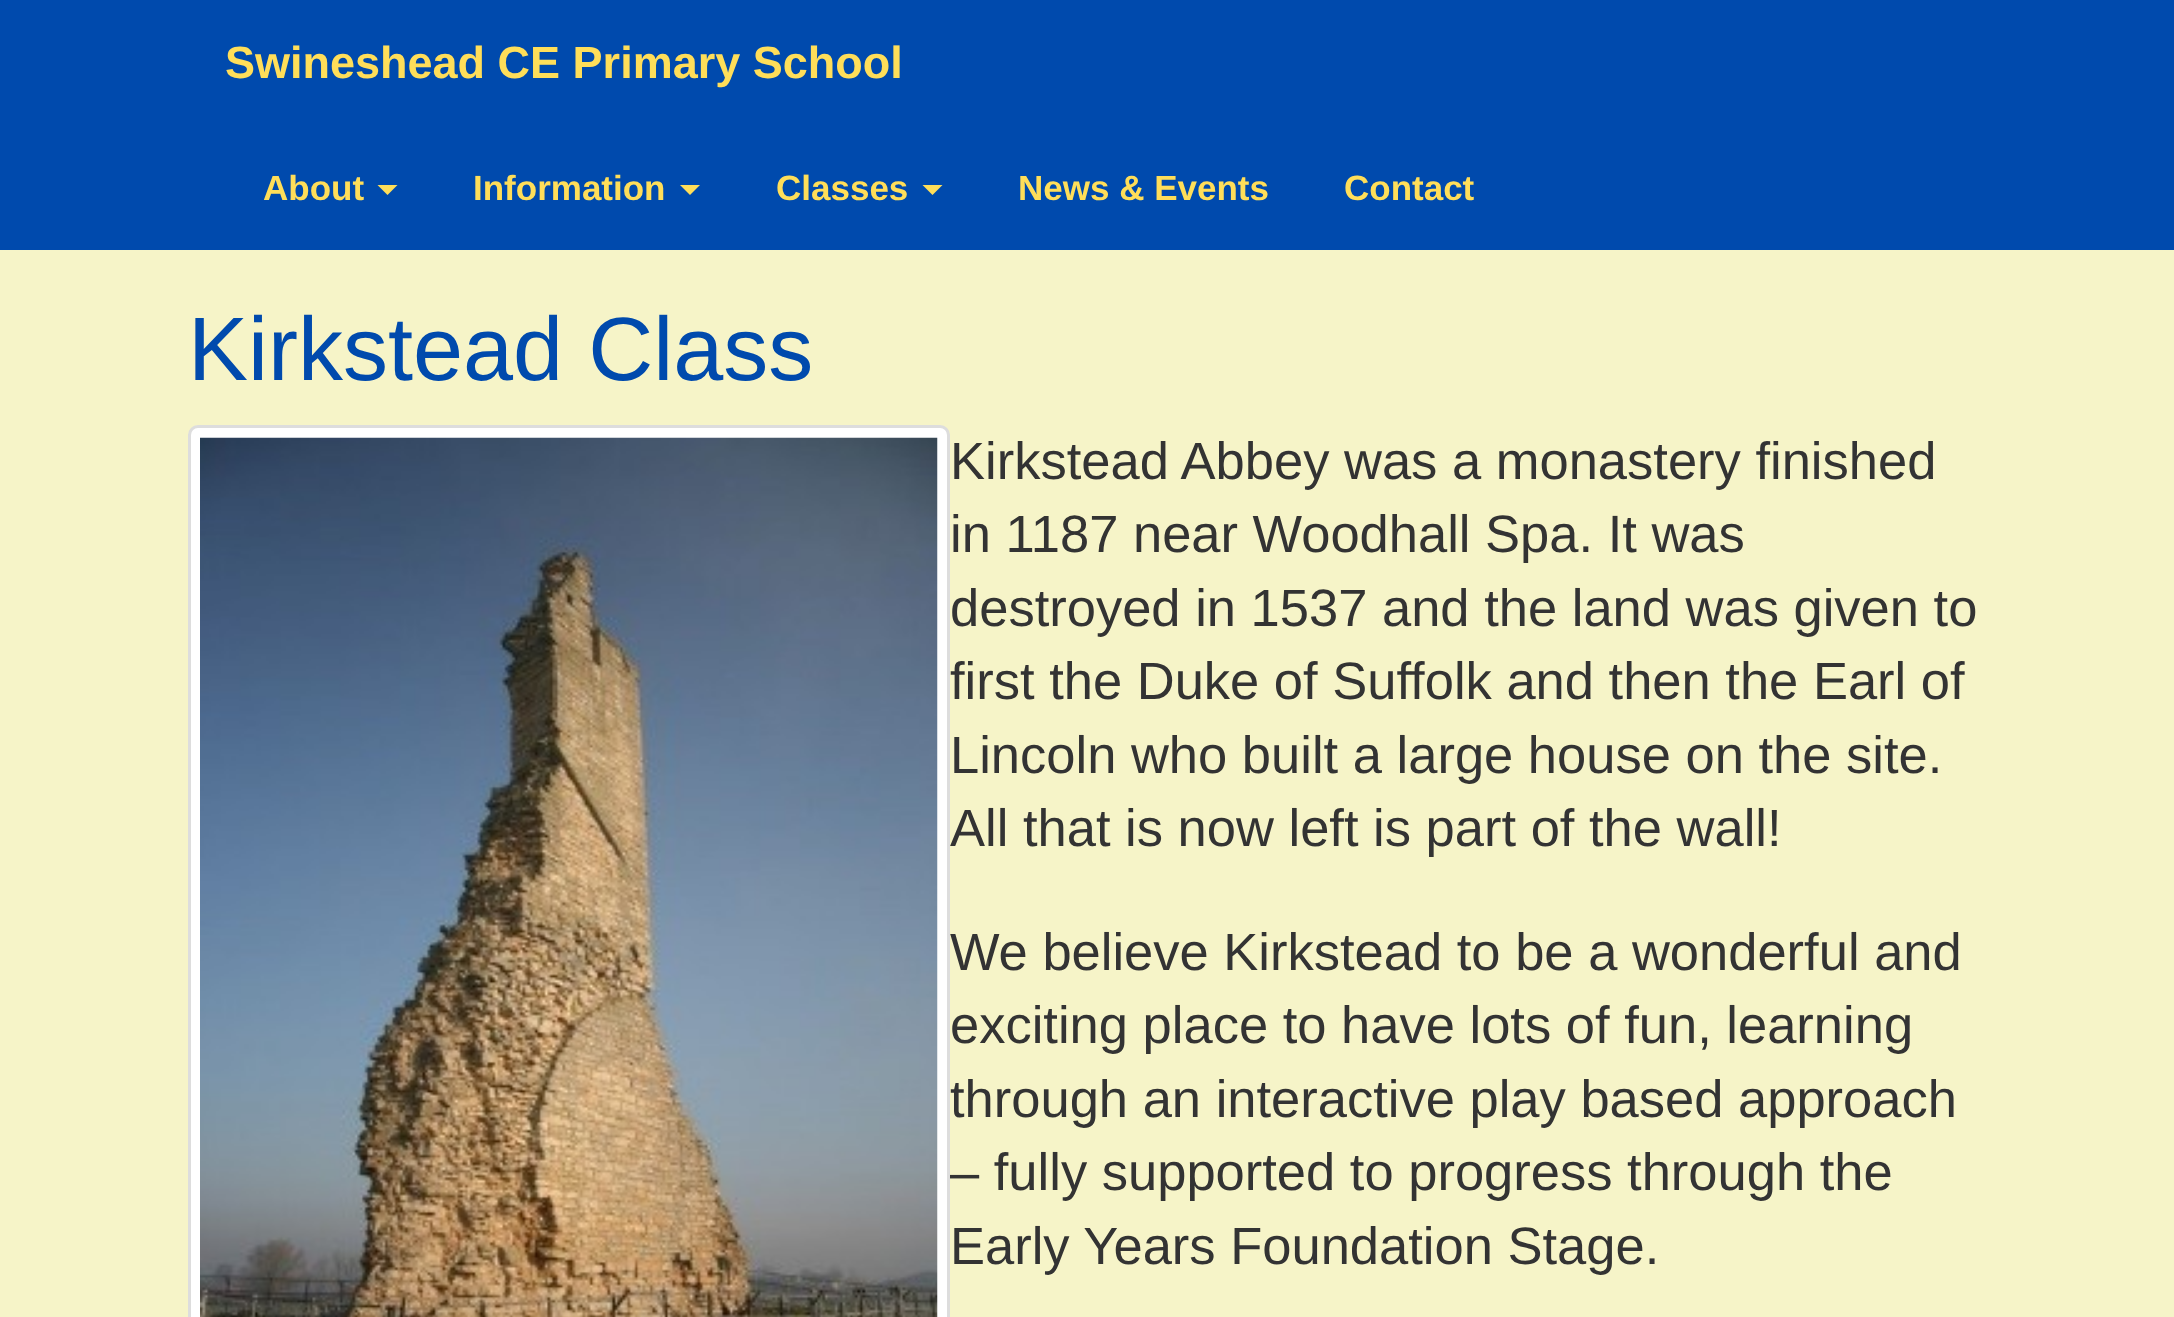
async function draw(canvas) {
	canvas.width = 2174;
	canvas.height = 1317;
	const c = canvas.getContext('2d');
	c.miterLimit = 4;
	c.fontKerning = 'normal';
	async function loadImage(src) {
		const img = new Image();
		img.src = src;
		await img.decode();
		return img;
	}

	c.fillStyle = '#f6f4c8';
	c.fillRect(0, 0, 2174, 1317);
	c.fillStyle = '#004aad';
	c.fillRect(0, 0, 2174, 250);
	c.font = 'bold 45px Liberation Sans';
	c.fillStyle = '#ffde59';
	c.fillText('Swineshead CE Primary School', 225, 78);
	c.font = 'bold 35px Liberation Sans';
	c.fillText('About', 263, 200);
	c.beginPath();
	c.moveTo(377.5, 185);
	c.lineTo(397.5, 185);
	c.lineTo(387.5, 195);
	c.closePath();
	c.fill();
	c.fillText('Information', 473, 200);
	c.beginPath();
	c.moveTo(680, 185);
	c.lineTo(700, 185);
	c.lineTo(690, 195);
	c.closePath();
	c.fill();
	c.fillText('Classes', 776, 200);
	c.beginPath();
	c.moveTo(922.5, 185);
	c.lineTo(942.5, 185);
	c.lineTo(932.5, 195);
	c.closePath();
	c.fill();
	c.fillText('News & Events', 1018, 200);
	c.fillText('Contact', 1344, 200);
	c.font = '90px Liberation Sans';
	c.fillStyle = '#004aad';
	c.fillText('Kirkstead Class', 188, 380);
	c.fillStyle = '#fff';
	c.beginPath();
	c.roundRect(189.5, 426.5, 759, 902, 8.5);
	c.fill();
	c.strokeStyle = '#ddd';
	c.lineWidth = 3;
	c.stroke();
	c.drawImage(await loadImage('img1.png'), 200, 437, 738, 880);
	c.font = '52.5px Liberation Sans';
	c.fillStyle = '#333';
	for (const [text, x, y] of [
		['Kirkstead Abbey was a monastery finished', 950, 479],
		['in 1187 near Woodhall Spa. It was', 950, 552],
		['destroyed in 1537 and the land was given to', 950, 626],
		['first the Duke of Suffolk and then the Earl of', 950, 699],
		['Lincoln who built a large house on the site.', 950, 773],
		['All that is now left is part of the wall!', 950, 846],
		['We believe Kirkstead to be a wonderful and', 950, 970],
		['exciting place to have lots of fun, learning', 950, 1043],
		['through an interactive play based approach', 950, 1117],
		['– fully supported to progress through the', 950, 1190],
		['Early Years Foundation Stage.', 950, 1264],
	]) {
		c.fillText(text, x, y);
	}
}

draw(document.querySelector('canvas'));
